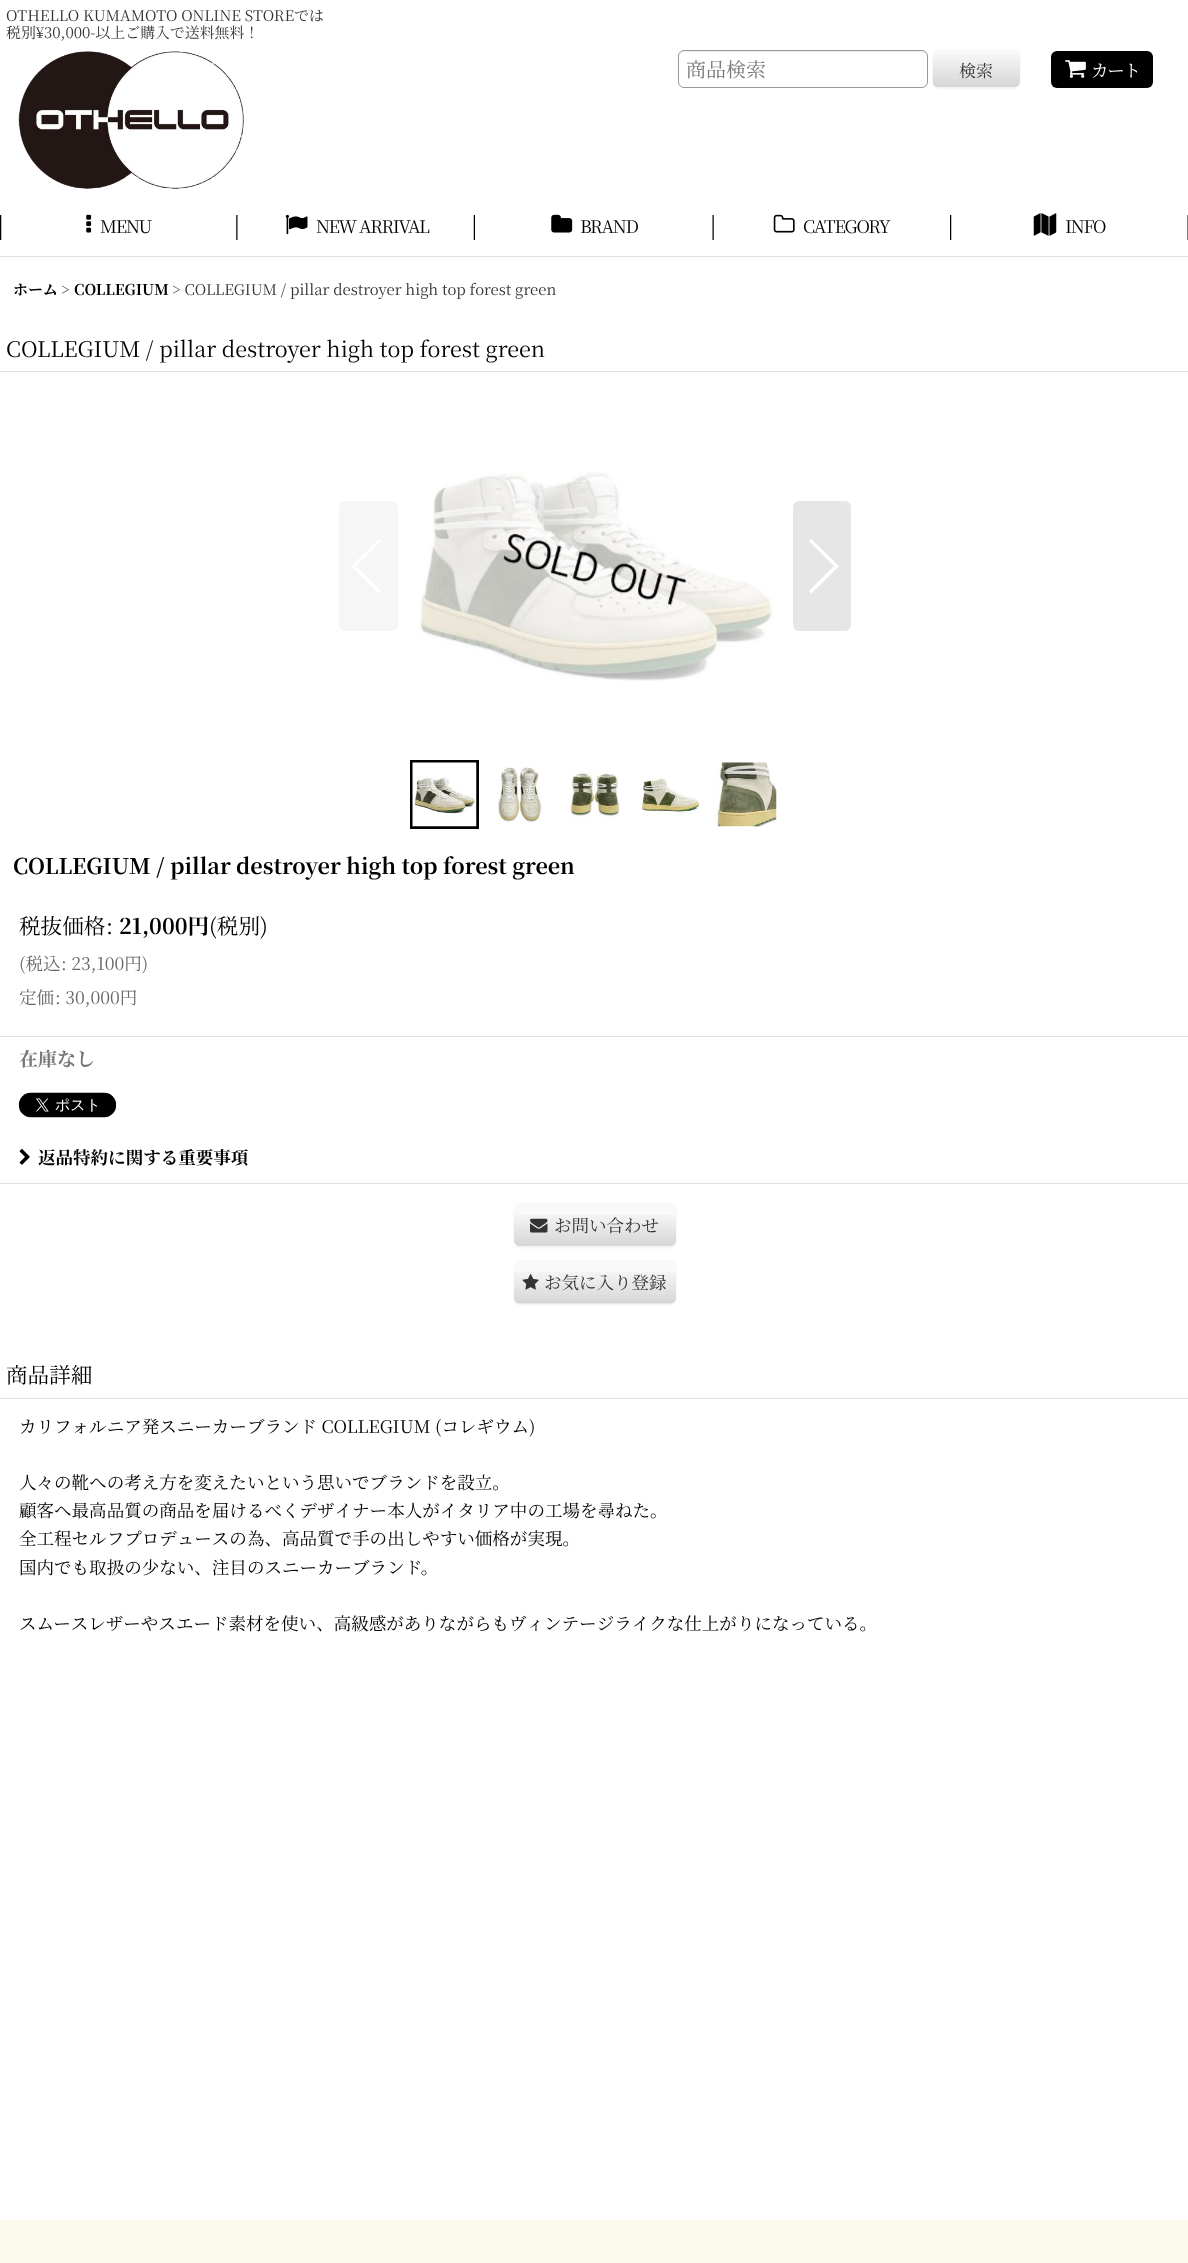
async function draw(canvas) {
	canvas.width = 1188;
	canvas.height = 2263;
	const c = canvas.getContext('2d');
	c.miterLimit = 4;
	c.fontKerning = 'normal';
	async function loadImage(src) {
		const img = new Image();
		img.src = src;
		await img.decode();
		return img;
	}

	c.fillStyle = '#fff';
	c.fillRect(0, 0, 1188, 2263);
	c.font = '14.9px Noto Serif JP';
	c.fillStyle = '#333';
	c.fillText('OTHELLO KUMAMOTO ONLINE STOREでは', 6, 21);
	c.fillText('税別¥30,000-以上ご購入で送料無料！', 6, 38);
	c.fillStyle = '#ececec';
	c.beginPath();
	c.moveTo(684, 52);
	c.lineTo(921, 52);
	c.bezierCurveTo(924, 52, 926, 55, 926, 58);
	c.bezierCurveTo(926, 55, 926, 52, 922, 51);
	c.lineTo(683, 51);
	c.bezierCurveTo(679, 52, 679, 55, 679, 58);
	c.bezierCurveTo(679, 55, 681, 52, 684, 52);
	c.closePath();
	c.fill();
	c.beginPath();
	c.roundRect(678.5, 50.5, 249, 37, 5.5);
	c.strokeStyle = '#999';
	c.stroke();
	c.font = '20px Noto Serif JP';
	c.fillStyle = '#777';
	c.fillText('商品検索', 686, 77);
	c.fillStyle = '#0000000d';
	c.filter = 'blur(1px)';
	c.beginPath();
	c.roundRect(933, 51, 87, 38, 6);
	c.fill();
	c.filter = 'none';
	c.fillStyle = '#f9f9f9';
	c.beginPath();
	c.roundRect(933, 50, 87, 38, 6);
	c.fill();
	c.drawImage(await loadImage('img1.png'), 932, 53, 88, 35);
	c.font = '17px Noto Serif JP';
	c.fillStyle = '#333';
	c.fillText('検索', 959, 77);
	c.drawImage(await loadImage('img2.png'), 18, 51, 226, 138);
	c.fillStyle = '#000';
	c.beginPath();
	c.roundRect(1051, 51, 102, 37, 6);
	c.fill();
	c.drawImage(await loadImage('img3.png'), 1065, 60, 21, 18);
	c.letterSpacing = '-1.25px';
	c.font = '17.55px Noto Serif JP';
	c.fillStyle = '#fff';
	c.fillText('カート', 1091, 77);
	c.fillStyle = '#e0dfe3';
	c.fillRect(0, 256, 1188, 1);
	c.drawImage(await loadImage('img4.png'), 0, 215, 238, 25);
	c.drawImage(await loadImage('img5.png'), 86, 214, 6, 19);
	c.fillStyle = '#000';
	c.fillText('MENU', 100, 233);
	c.drawImage(await loadImage('img6.png'), 473, 215, 2, 25);
	c.drawImage(await loadImage('img7.png'), 285, 214, 23, 21);
	c.fillText('NEW ARRIVAL', 316, 233);
	c.drawImage(await loadImage('img8.png'), 712, 215, 2, 25);
	c.drawImage(await loadImage('img9.png'), 551, 214, 22, 19);
	c.fillText('BRAND', 580, 233);
	c.drawImage(await loadImage('img10.png'), 950, 215, 2, 25);
	c.drawImage(await loadImage('img11.png'), 773, 214, 22, 19);
	c.fillText('CATEGORY', 803, 233);
	c.fillStyle = '#808080';
	c.fillRect(1187, 215, 1, 25);
	c.drawImage(await loadImage('img12.png'), 1033, 213, 24, 23);
	c.fillStyle = '#000';
	c.fillText('INFO', 1065, 233);
	c.letterSpacing = '0px';
	c.font = 'bold 14.9px Noto Serif JP';
	c.fillText('ホーム', 13, 295);
	c.font = '14.9px Noto Serif JP';
	c.fillStyle = '#333';
	c.fillText('>', 61, 295);
	c.font = 'bold 14.9px Noto Serif JP';
	c.fillStyle = '#000';
	c.fillText('COLLEGIUM', 74, 295);
	c.font = '14.9px Noto Serif JP';
	c.fillStyle = '#333';
	c.fillText('> COLLEGIUM / pillar destroyer high top forest green', 172, 295);
	c.fillStyle = '#e0dfe3';
	c.fillRect(0, 371, 1188, 1);
	c.font = '21.6px Noto Serif JP';
	c.fillStyle = '#000';
	c.fillText('COLLEGIUM / pillar destroyer high top forest green', 6, 357);
	c.drawImage(await loadImage('img13.png'), 419, 472, 354, 209);
	c.fillStyle = '#f6f6f6';
	c.beginPath();
	c.roundRect(339, 501, 59, 130, 6);
	c.fill();
	c.fillStyle = '#fff';
	c.beginPath();
	c.moveTo(351, 566);
	c.lineTo(379, 539);
	c.lineTo(381, 541);
	c.lineTo(356, 566);
	c.lineTo(381, 591);
	c.lineTo(379, 594);
	c.closePath();
	c.fill();
	c.fillStyle = '#e6e6e6';
	c.beginPath();
	c.roundRect(793, 501, 58, 130, 6);
	c.fill();
	c.fillStyle = '#fff';
	c.beginPath();
	c.moveTo(839, 566);
	c.lineTo(811, 594);
	c.lineTo(809, 591);
	c.lineTo(834, 566);
	c.lineTo(809, 541);
	c.lineTo(811, 539);
	c.closePath();
	c.fill();
	c.strokeStyle = '#000';
	c.lineWidth = 3;
	c.strokeRect(411.5, 761.5, 66, 66);
	c.drawImage(await loadImage('img14.png'), 412, 762, 65, 65);
	c.drawImage(await loadImage('img15.png'), 497, 767, 46, 59);
	c.drawImage(await loadImage('img16.png'), 570, 772, 51, 46);
	c.drawImage(await loadImage('img17.png'), 639, 776, 62, 41);
	c.drawImage(await loadImage('img18.png'), 714, 762, 63, 65);
	c.font = 'bold 21.6px Noto Serif JP';
	c.fillStyle = '#000';
	c.fillText('COLLEGIUM / pillar destroyer high top forest green', 13, 874);
	c.fillStyle = '#e0dfe3';
	c.fillRect(0, 1036, 1188, 1);
	c.font = '21.6px Noto Serif JP';
	c.fillStyle = '#000';
	c.fillText('税抜価格', 19, 934);
	c.fillText(':', 106, 934);
	c.font = 'bold 21.6px Noto Serif JP';
	c.fillText('21,000円', 119, 934);
	c.font = '21.6px Noto Serif JP';
	c.fillText('(税別)', 209, 934);
	c.font = '17.55px Noto Serif JP';
	c.fillStyle = '#666';
	for (const [text, x, y] of [
		['(税込', 19, 970],
		[': 23,100円)', 61, 970],
		['定価', 19, 1004],
		[': 30,000円', 55, 1004],
	]) {
		c.fillText(text, x, y);
	}
	c.font = 'bold 19px Noto Serif JP';
	c.fillStyle = '#777';
	c.fillText('在庫なし', 19, 1066);
	c.drawImage(await loadImage('img19.png'), 18, 1092, 99, 26);
	c.fillStyle = '#e0dfe3';
	c.fillRect(0, 1183, 1188, 1);
	c.drawImage(await loadImage('img20.png'), 19, 1149, 11, 16);
	c.font = 'bold 17.55px Noto Serif JP';
	c.fillStyle = '#000';
	c.fillText('返品特約に関する重要事項', 38, 1164);
	c.fillStyle = '#0000000d';
	c.filter = 'blur(1px)';
	c.beginPath();
	c.roundRect(514, 1204, 162, 44, 6);
	c.fill();
	c.filter = 'none';
	c.fillStyle = '#f9f9f9';
	c.beginPath();
	c.roundRect(514, 1203, 162, 43, 6);
	c.fill();
	c.drawImage(await loadImage('img21.png'), 514, 1215, 162, 31);
	c.drawImage(await loadImage('img22.png'), 530, 1218, 18, 15);
	c.font = '17.5px Noto Serif JP';
	c.fillStyle = '#333';
	c.fillText('お問い合わせ', 554, 1232);
	c.fillStyle = '#0000000d';
	c.filter = 'blur(1px)';
	c.beginPath();
	c.roundRect(514, 1261, 162, 44, 6);
	c.fill();
	c.filter = 'none';
	c.fillStyle = '#f9f9f9';
	c.beginPath();
	c.roundRect(514, 1260, 162, 44, 6);
	c.fill();
	c.drawImage(await loadImage('img23.png'), 514, 1272, 162, 32);
	c.drawImage(await loadImage('img24.png'), 522, 1274, 17, 16);
	c.fillStyle = '#333';
	c.fillText('お気に入り登録', 544, 1289);
	c.fillStyle = '#e0dfe3';
	c.fillRect(0, 1398, 1188, 1);
	c.font = '21.6px Noto Serif JP';
	c.fillStyle = '#000';
	c.fillText('商品詳細', 6, 1383);
	c.font = '17.55px Noto Serif JP';
	for (const [text, x, y] of [
		['カリフォルニア発スニーカーブランド COLLEGIUM (コレギウム)', 19, 1433],
		['人々の靴への考え方を変えたいという思いでブランドを設立。', 19, 1489],
		['顧客へ最高品質の商品を届けるべくデザイナー本人がイタリア中の工場を尋ねた。', 19, 1517],
		['全工程セルフプロデュースの為、高品質で手の出しやすい価格が実現。', 19, 1545],
		['国内でも取扱の少ない、注目のスニーカーブランド。', 19, 1574],
		['スムースレザーやスエード素材を使い、高級感がありながらもヴィンテージライクな仕上がりになっている。', 19, 1630],
	]) {
		c.fillText(text, x, y);
	}
	c.fillStyle = '#fbfaea';
	c.fillRect(0, 2220, 1188, 43);
}

draw(document.querySelector('canvas'));
